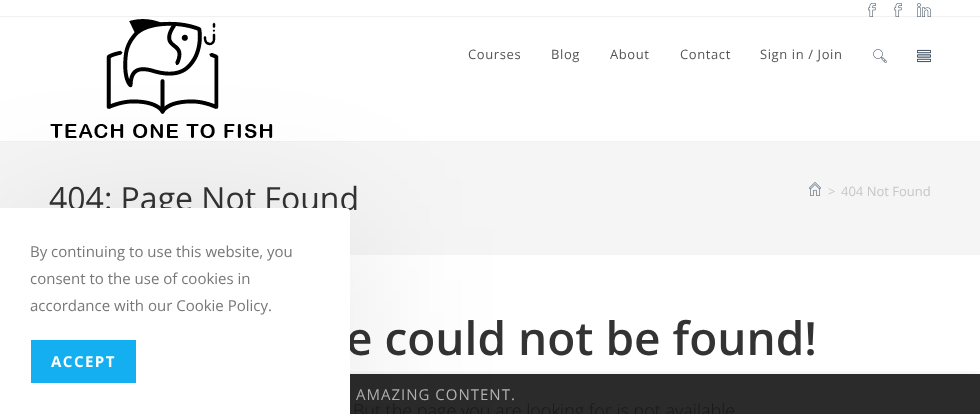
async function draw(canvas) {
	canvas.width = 980;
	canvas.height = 414;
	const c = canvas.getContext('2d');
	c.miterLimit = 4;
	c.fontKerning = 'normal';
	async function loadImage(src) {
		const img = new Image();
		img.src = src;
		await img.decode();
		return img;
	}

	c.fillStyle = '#fff';
	c.fillRect(0, 0, 980, 414);
	c.fillStyle = '#2b2b2b';
	c.fillRect(350, 374, 630, 40);
	c.fillStyle = '#f1f1f1';
	c.fillRect(0, 16, 980, 1);
	c.drawImage(await loadImage('img1.png'), 868, 3, 8, 14);
	c.drawImage(await loadImage('img1.png'), 894, 3, 8, 14);
	c.drawImage(await loadImage('img2.png'), 917, 3, 14, 14);
	c.fillRect(0, 141, 980, 1);
	c.drawImage(await loadImage('img3.png'), 50, 19, 223, 119);
	c.letterSpacing = '0.6px';
	c.font = '13px Open Sans';
	c.fillStyle = '#555';
	for (const [text, x, y] of [
		['Courses', 468, 59],
		['Blog', 551, 59],
		['About', 610, 59],
		['Contact', 680, 59],
		['Sign in / Join', 760, 59],
	]) {
		c.fillText(text, x, y);
	}
	c.drawImage(await loadImage('img4.png'), 873, 49, 14, 14);
	c.drawImage(await loadImage('img5.png'), 917, 49, 14, 14);
	c.fillStyle = '#f5f5f5';
	c.fillRect(0, 142, 980, 113);
	c.letterSpacing = '0px';
	c.font = '32px Open Sans';
	c.fillStyle = '#333';
	c.fillText('404: Page Not Found', 49, 210);
	c.drawImage(await loadImage('img6.png'), 809, 182, 12, 14);
	c.font = '13px Open Sans';
	c.fillStyle = '#c6c6c6';
	c.fillText('>', 828, 196);
	c.fillText('404 Not Found', 841, 196);
	c.font = '600 46px Open Sans';
	c.fillStyle = '#333';
	c.fillText('e could not be found!', 346, 355);
	c.font = '300 18px Open Sans';
	c.fillStyle = '#191919';
	c.fillText('But the page you are looking for is not available', 353, 417);
	c.save();
	c.beginPath();
	c.rect(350, 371, 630, 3);
	c.clip();
	c.fillStyle = '#00000017';
	c.filter = 'blur(4px)';
	c.beginPath();
	c.rect(0, 374, 980, 40);
	c.fill();
	c.filter = 'none';
	c.restore();
	c.letterSpacing = '1px';
	c.font = '15px Open Sans';
	c.fillStyle = '#b2b2b2';
	c.fillText('AMAZING CONTENT.', 356, 400);
	c.fillStyle = '#0000001a';
	c.filter = 'blur(75px)';
	c.beginPath();
	c.roundRect(0, 228, 350, 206, 4);
	c.fill();
	c.filter = 'none';
	c.fillStyle = '#fff';
	c.beginPath();
	c.roundRect(0, 208, 350, 206, [0, 4, 0, 0]);
	c.fill();
	c.letterSpacing = '0px';
	c.fillStyle = '#777';
	for (const [text, x, y] of [
		['By continuing to use this website, you', 30, 257],
		['consent to the use of cookies in', 30, 284],
		['accordance with our Cookie Policy.', 30, 311],
	]) {
		c.fillText(text, x, y);
	}
	c.fillStyle = '#13aff0';
	c.fillRect(31, 340, 105, 43);
	c.letterSpacing = '1.5px';
	c.font = 'bold 15px Open Sans';
	c.fillStyle = '#fff';
	c.fillText('ACCEPT', 51, 367);
}

draw(document.querySelector('canvas'));
